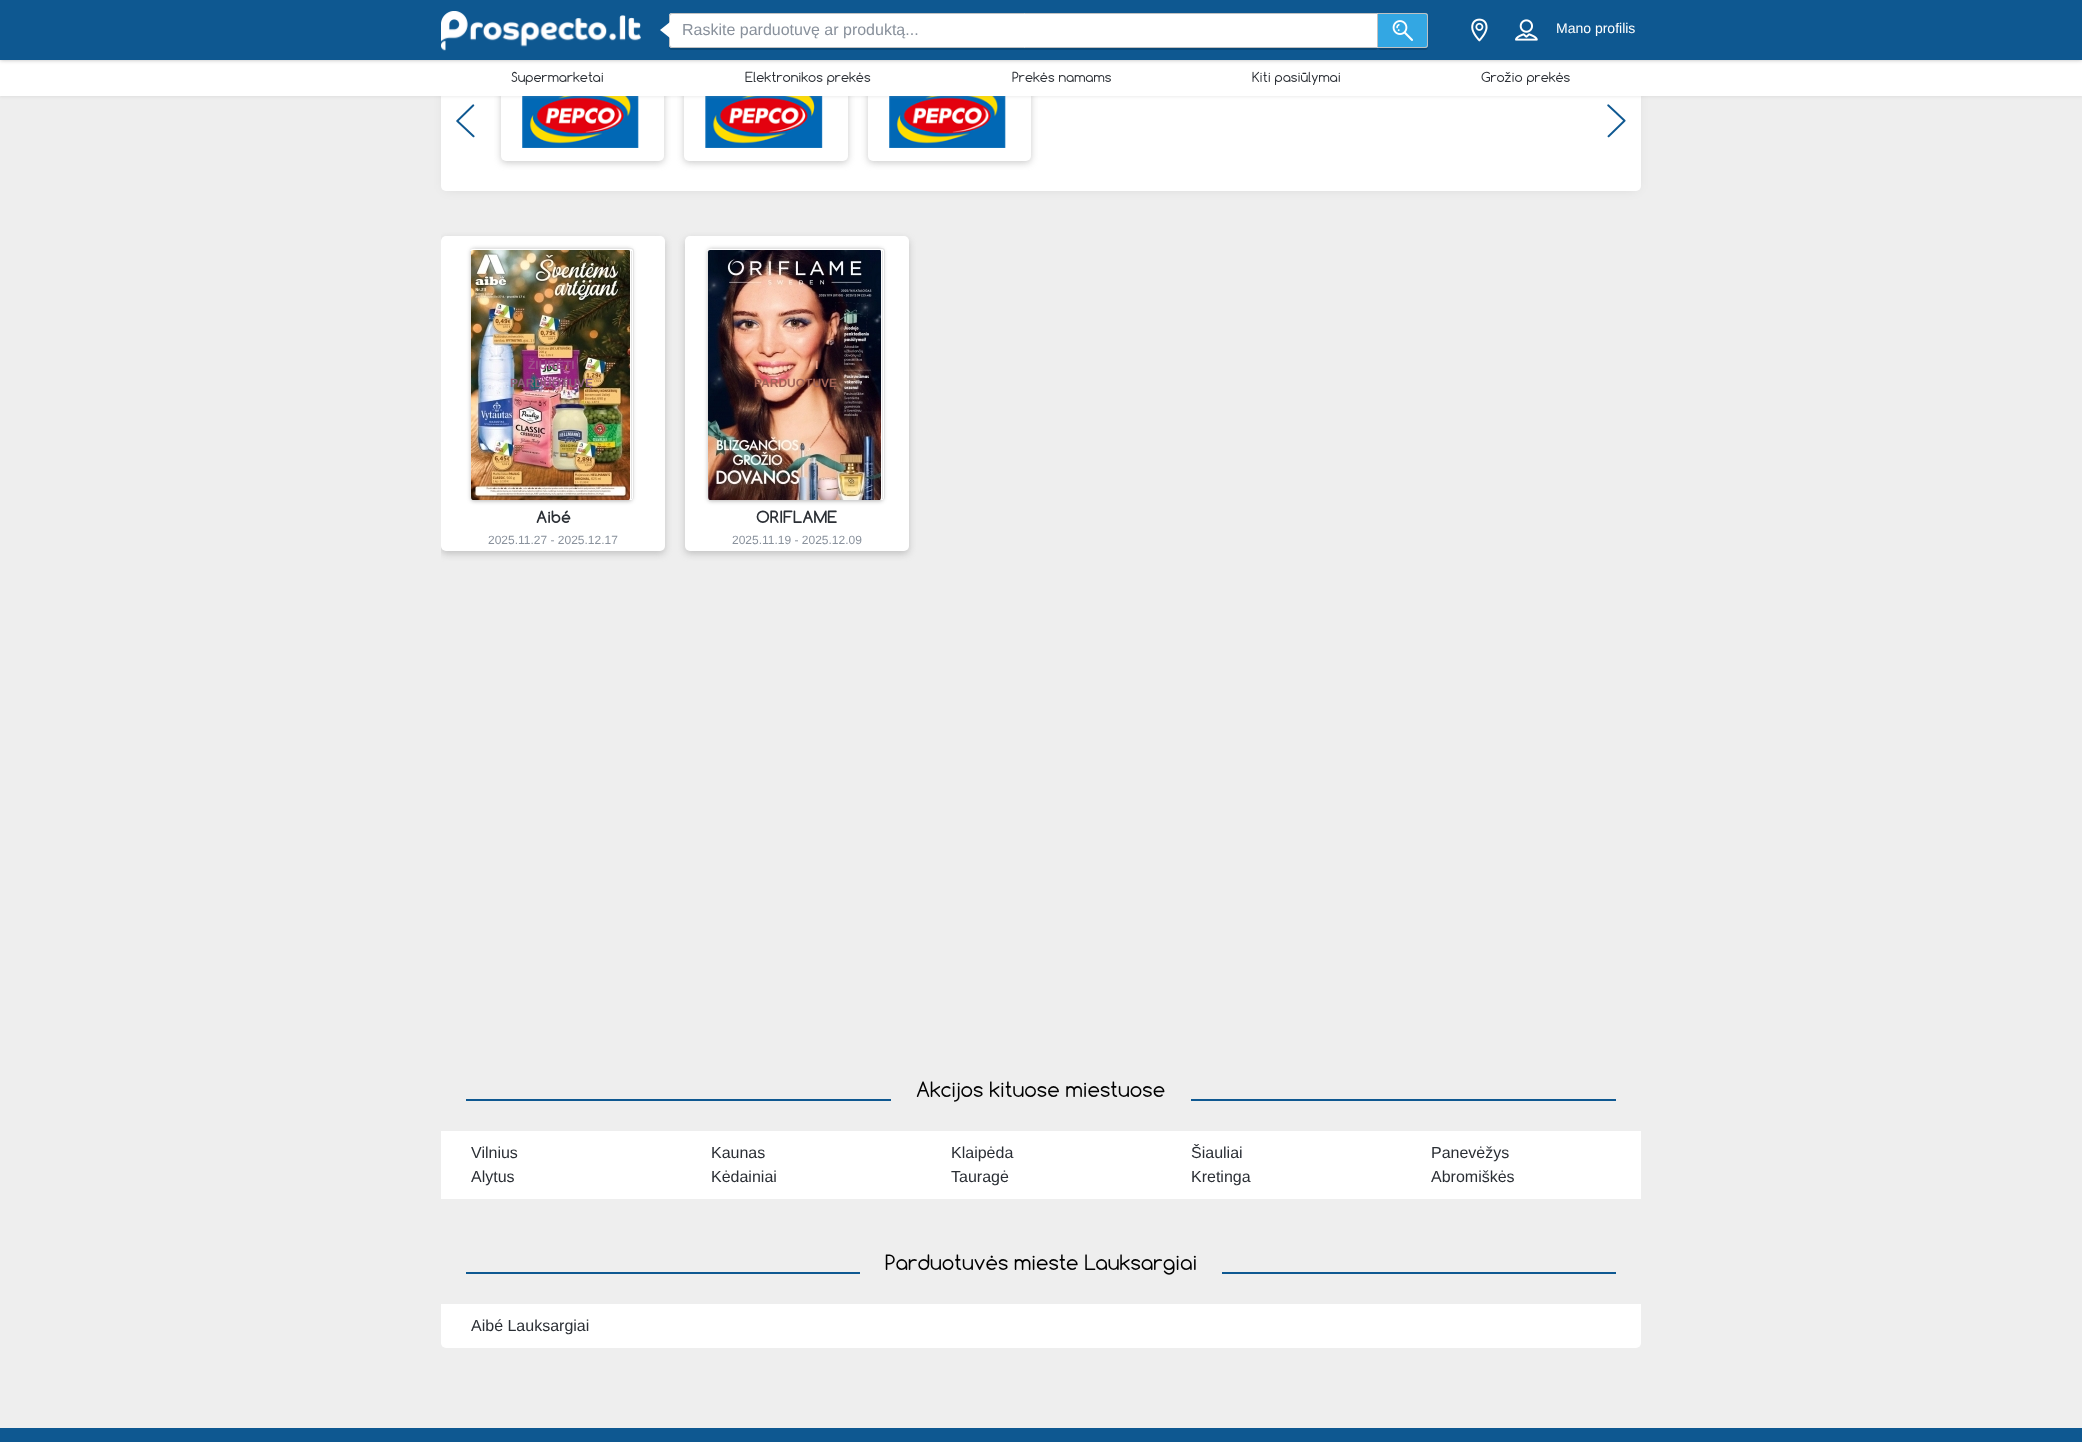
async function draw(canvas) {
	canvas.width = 2082;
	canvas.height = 1442;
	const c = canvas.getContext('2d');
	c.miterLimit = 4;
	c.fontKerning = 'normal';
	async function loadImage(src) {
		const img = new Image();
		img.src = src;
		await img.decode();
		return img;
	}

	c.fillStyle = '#eee';
	c.fillRect(0, 0, 2082, 1442);
	c.fillStyle = '#0000001a';
	c.filter = 'blur(6px)';
	c.beginPath();
	c.roundRect(445, -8, 1192, 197, 1);
	c.fill();
	c.filter = 'none';
	c.fillStyle = '#fff';
	c.beginPath();
	c.roundRect(441, 61, 1200, 130, [0, 0, 5, 5]);
	c.fill();
	c.fillStyle = '#99999980';
	c.filter = 'blur(3.5px)';
	c.beginPath();
	c.roundRect(501, 73, 163, 90, 5);
	c.fill();
	c.filter = 'none';
	c.fillStyle = '#fff';
	c.beginPath();
	c.roundRect(501, 71, 163, 90, 5);
	c.fill();
	c.drawImage(await loadImage('img6.png'), 522, 96, 117, 52);
	c.fillStyle = '#99999980';
	c.filter = 'blur(3.5px)';
	c.beginPath();
	c.roundRect(684, 73, 164, 90, 5);
	c.fill();
	c.filter = 'none';
	c.fillStyle = '#fff';
	c.beginPath();
	c.roundRect(684, 71, 164, 90, 5);
	c.fill();
	c.drawImage(await loadImage('img7.png'), 705, 96, 118, 52);
	c.fillStyle = '#99999980';
	c.filter = 'blur(3.5px)';
	c.beginPath();
	c.roundRect(868, 73, 163, 90, 5);
	c.fill();
	c.filter = 'none';
	c.fillStyle = '#fff';
	c.beginPath();
	c.roundRect(868, 71, 163, 90, 5);
	c.fill();
	c.drawImage(await loadImage('img6.png'), 889, 96, 117, 52);
	c.fillStyle = '#99999933';
	c.filter = 'blur(1.5px)';
	c.beginPath();
	c.rect(0, 61, 2082, 36);
	c.fill();
	c.filter = 'none';
	c.fillStyle = '#fff';
	c.fillRect(0, 60, 2082, 36);
	c.fillStyle = '#00000047';
	c.filter = 'blur(2px)';
	c.beginPath();
	c.rect(0, 0, 2082, 60);
	c.fill();
	c.filter = 'none';
	c.fillStyle = '#0e5891';
	c.fillRect(0, 0, 2082, 60);
	c.drawImage(await loadImage('img1.png'), 441, 11, 200, 40);
	c.fillStyle = '#0000002b';
	c.filter = 'blur(0.5px)';
	c.beginPath();
	c.roundRect(1378, 15, 50, 35, 3);
	c.fill();
	c.filter = 'none';
	c.fillStyle = '#fff';
	c.beginPath();
	c.roundRect(669, 13, 709, 35, [3, 0, 0, 3]);
	c.fill();
	c.fillStyle = '#33a7e3';
	c.beginPath();
	c.roundRect(1378, 13, 50, 35, [0, 3, 3, 0]);
	c.fill();
	c.fillStyle = '#c1c1c1';
	c.beginPath();
	c.moveTo(1378, 13);
	c.lineTo(1425, 13);
	c.bezierCurveTo(1427, 13, 1428, 14, 1428, 16);
	c.lineTo(1428, 45);
	c.bezierCurveTo(1428, 47, 1427, 48, 1425, 48);
	c.lineTo(1378, 48);
	c.closePath();
	c.moveTo(1378, 14);
	c.lineTo(1425, 14);
	c.bezierCurveTo(1426, 14, 1427, 15, 1427, 16);
	c.lineTo(1427, 45);
	c.bezierCurveTo(1427, 46, 1426, 47, 1425, 47);
	c.lineTo(1378, 47);
	c.closePath();
	c.fill('evenodd');
	c.save();
	c.beginPath();
	c.moveTo(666, 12);
	c.lineTo(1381, 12);
	c.lineTo(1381, 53);
	c.lineTo(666, 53);
	c.closePath();
	c.moveTo(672, 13);
	c.lineTo(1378, 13);
	c.lineTo(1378, 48);
	c.lineTo(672, 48);
	c.bezierCurveTo(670.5, 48, 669, 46.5, 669, 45);
	c.lineTo(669, 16);
	c.bezierCurveTo(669, 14.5, 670.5, 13, 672, 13);
	c.closePath();
	c.clip('evenodd');
	c.fillStyle = '#0000002b';
	c.filter = 'blur(0.5px)';
	c.beginPath();
	c.roundRect(669, 15, 709, 35, 3);
	c.fill();
	c.filter = 'none';
	c.restore();
	c.beginPath();
	c.roundRect(669.5, 13.5, 708, 34, [2.5, 0, 0, 2.5]);
	c.strokeStyle = '#c1c1c1';
	c.stroke();
	c.fillStyle = '#fff';
	c.beginPath();
	c.moveTo(670, 22);
	c.lineTo(670, 38);
	c.lineTo(660, 30);
	c.closePath();
	c.fill();
	c.font = '16px Liberation Sans';
	c.fillStyle = '#89919c';
	c.fillText('Raskite parduotuvę ar produktą...', 682, 35);
	c.drawImage(await loadImage('img2.png'), 1392, 20, 21, 21);
	c.drawImage(await loadImage('img3.png'), 1471, 18, 17, 24);
	c.drawImage(await loadImage('img4.png'), 1515, 19, 23, 22);
	c.font = '14px Liberation Sans';
	c.fillStyle = '#fff';
	c.fillText('Mano profilis', 1556, 33);
	c.font = '13px Comfortaa';
	c.fillStyle = '#2b2f35';
	for (const [text, x, y] of [
		['Supermarketai', 511, 82],
		['Elektronikos prekės', 745, 82],
		['Prekės namams', 1012, 82],
		['Kiti pasiūlymai', 1252, 82],
		['Grožio prekės', 1481, 82],
	]) {
		c.fillText(text, x, y);
	}
	c.drawImage(await loadImage('img5.png'), 456, 104, 19, 34);
	c.drawImage(await loadImage('img8.png'), 1607, 104, 19, 34);
	c.save();
	c.beginPath();
	c.roundRect(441, 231, 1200, 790, 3);
	c.clip();
	c.fillStyle = '#99999980';
	c.filter = 'blur(3.5px)';
	c.beginPath();
	c.roundRect(441, 239, 224, 315, 5);
	c.fill();
	c.filter = 'none';
	c.restore();
	c.fillStyle = '#fff';
	c.beginPath();
	c.roundRect(441, 236, 224, 315, 5);
	c.fill();
	c.fillStyle = '#0000004a';
	c.filter = 'blur(2px)';
	c.beginPath();
	c.roundRect(471, 249, 161, 252, 3);
	c.fill();
	c.filter = 'none';
	c.fillStyle = '#fff';
	c.beginPath();
	c.roundRect(473, 248, 161, 252, 3);
	c.fill();
	c.fillStyle = '#e4e4e4';
	c.beginPath();
	c.moveTo(476, 248);
	c.lineTo(631, 248);
	c.bezierCurveTo(633, 248, 634, 249, 634, 251);
	c.lineTo(634, 497);
	c.bezierCurveTo(634, 499, 633, 500, 631, 500);
	c.lineTo(476, 500);
	c.bezierCurveTo(474, 500, 473, 499, 473, 497);
	c.lineTo(473, 251);
	c.bezierCurveTo(473, 249, 474, 248, 476, 248);
	c.closePath();
	c.moveTo(476, 249);
	c.lineTo(631, 249);
	c.bezierCurveTo(632, 249, 633, 250, 633, 251);
	c.lineTo(633, 497);
	c.bezierCurveTo(633, 499, 632, 500, 631, 500);
	c.lineTo(476, 500);
	c.bezierCurveTo(474, 500, 473, 499, 473, 497);
	c.lineTo(473, 251);
	c.bezierCurveTo(473, 250, 474, 249, 476, 249);
	c.closePath();
	c.fill('evenodd');
	c.fillStyle = '#fff';
	c.beginPath();
	c.roundRect(470, 249, 162, 251, 3);
	c.fill();
	c.fillStyle = '#e4e4e4';
	c.fillRect(631, 251, 1, 248);
	c.fillRect(470, 251, 1, 248);
	c.drawImage(await loadImage('img9.png'), 471, 250, 159, 250);
	c.font = 'bold 12px Liberation Sans';
	c.fillStyle = '#a04f8a';
	c.fillText('ŽIŪRĖTI', 528, 369);
	c.fillStyle = '#8f607b';
	c.fillText('PARDUOTUVĘ', 510, 387);
	c.font = 'bold 16px Comfortaa';
	c.fillStyle = '#2b2f35';
	c.fillText('Aibé', 536, 523);
	c.font = '12px Liberation Sans';
	c.fillStyle = '#89919c';
	c.fillText('2025.11.27 - 2025.12.17', 488, 544);
	c.fillStyle = '#99999980';
	c.filter = 'blur(3.5px)';
	c.beginPath();
	c.roundRect(685, 239, 224, 315, 5);
	c.fill();
	c.filter = 'none';
	c.fillStyle = '#fff';
	c.beginPath();
	c.roundRect(685, 236, 224, 315, 5);
	c.fill();
	c.fillStyle = '#0000004a';
	c.filter = 'blur(2px)';
	c.beginPath();
	c.roundRect(708, 249, 175, 252, 3);
	c.fill();
	c.filter = 'none';
	c.fillStyle = '#fff';
	c.beginPath();
	c.roundRect(710, 248, 175, 252, 3);
	c.fill();
	c.fillStyle = '#e4e4e4';
	c.beginPath();
	c.moveTo(713, 248);
	c.lineTo(882, 248);
	c.bezierCurveTo(884, 248, 885, 249, 885, 251);
	c.lineTo(885, 497);
	c.bezierCurveTo(885, 499, 884, 500, 882, 500);
	c.lineTo(713, 500);
	c.bezierCurveTo(711, 500, 710, 499, 710, 497);
	c.lineTo(710, 251);
	c.bezierCurveTo(710, 249, 711, 248, 713, 248);
	c.closePath();
	c.moveTo(713, 249);
	c.lineTo(882, 249);
	c.bezierCurveTo(883, 249, 884, 250, 884, 251);
	c.lineTo(884, 497);
	c.bezierCurveTo(884, 499, 883, 500, 882, 500);
	c.lineTo(713, 500);
	c.bezierCurveTo(711, 500, 710, 499, 710, 497);
	c.lineTo(710, 251);
	c.bezierCurveTo(710, 250, 711, 249, 713, 249);
	c.closePath();
	c.fill('evenodd');
	c.fillStyle = '#fff';
	c.beginPath();
	c.roundRect(707, 249, 176, 251, 3);
	c.fill();
	c.fillStyle = '#e4e4e4';
	c.fillRect(882, 251, 1, 248);
	c.fillRect(707, 251, 1, 248);
	c.drawImage(await loadImage('img10.png'), 708, 250, 173, 250);
	c.font = 'bold 12px Liberation Sans';
	c.fillStyle = '#e29d86';
	c.fillText('I', 815, 369);
	c.fillStyle = '#a26457';
	c.fillText('PARDUOTUVĘ', 754, 387);
	c.font = 'bold 16px Comfortaa';
	c.fillStyle = '#2b2f35';
	c.fillText('ORIFLAME', 756, 523);
	c.font = '12px Liberation Sans';
	c.fillStyle = '#89919c';
	c.fillText('2025.11.19 - 2025.12.09', 732, 544);
	c.fillStyle = '#0e5891';
	c.fillRect(466, 1099, 1150, 2);
	c.fillStyle = '#eee';
	c.fillRect(891, 1099, 300, 2);
	c.font = '20px Comfortaa';
	c.fillStyle = '#000';
	c.fillText('Akcijos kituose miestuose', 916, 1097);
	c.fillStyle = '#fff';
	c.fillRect(441, 1131, 1200, 68);
	c.font = '16px Liberation Sans';
	c.fillStyle = '#2b2f35';
	for (const [text, x, y] of [
		['Vilnius', 471, 1158],
		['Kaunas', 711, 1158],
		['Klaipėda', 951, 1158],
		['Šiauliai', 1191, 1158],
		['Panevėžys', 1431, 1158],
		['Alytus', 471, 1182],
		['Kėdainiai', 711, 1182],
		['Tauragė', 951, 1182],
		['Kretinga', 1191, 1182],
		['Abromiškės', 1431, 1182],
	]) {
		c.fillText(text, x, y);
	}
	c.fillStyle = '#fff';
	c.beginPath();
	c.roundRect(441, 1229, 1200, 119, 5);
	c.fill();
	for (const [x, y, w, h, color] of [
		[441, 1229, 1200, 75, '#eee'],
		[466, 1272, 1150, 2, '#0e5891'],
		[860, 1272, 362, 2, '#eee'],
	]) {
		c.fillStyle = color;
		c.fillRect(x, y, w, h);
	}
	c.font = '20px Comfortaa';
	c.fillStyle = '#000';
	c.fillText('Parduotuvės mieste Lauksargiai', 885, 1270);
	c.font = '16px Liberation Sans';
	c.fillStyle = '#2b2f35';
	c.fillText('Aibé Lauksargiai', 471, 1331);
	c.fillStyle = '#0e5891';
	c.fillRect(0, 1428, 2082, 14);
}

draw(document.querySelector('canvas'));
